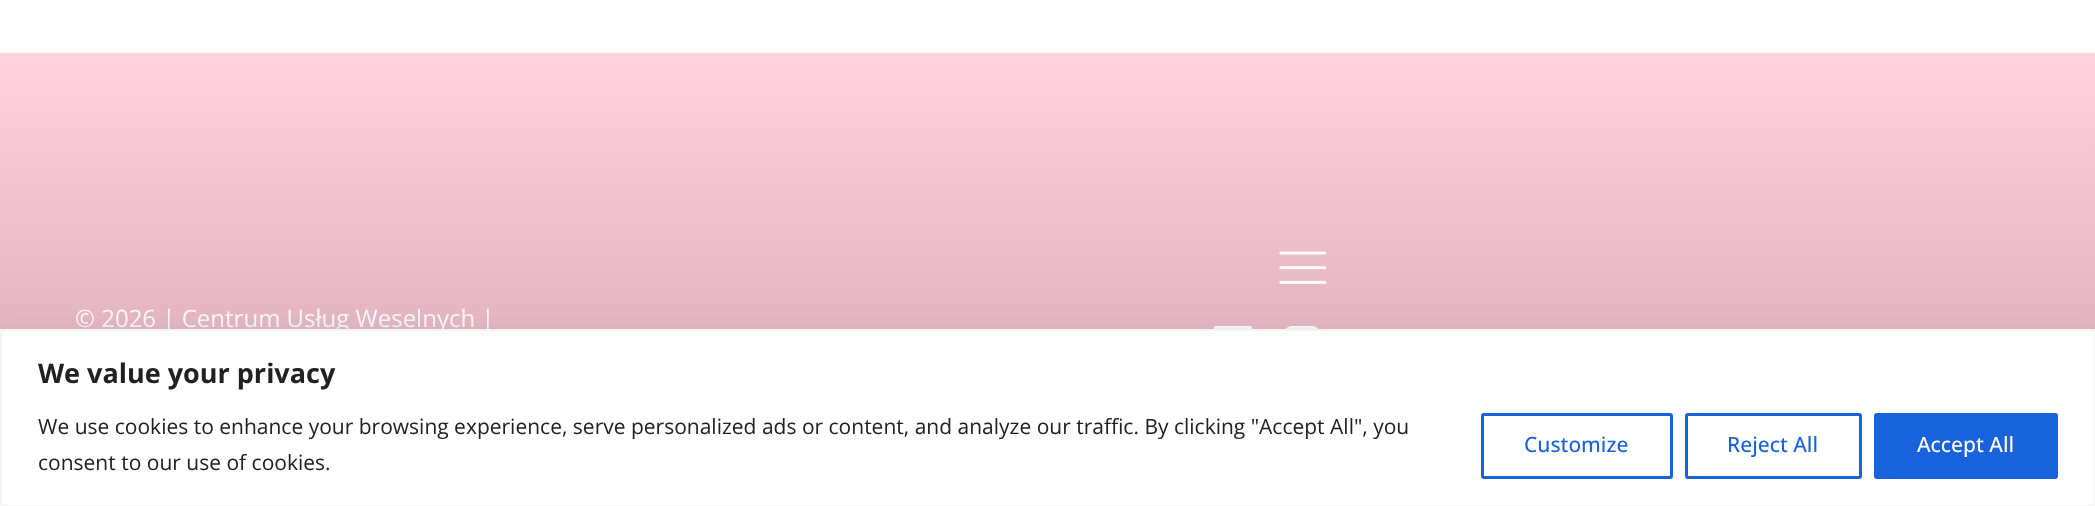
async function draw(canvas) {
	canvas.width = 2095;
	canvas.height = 506;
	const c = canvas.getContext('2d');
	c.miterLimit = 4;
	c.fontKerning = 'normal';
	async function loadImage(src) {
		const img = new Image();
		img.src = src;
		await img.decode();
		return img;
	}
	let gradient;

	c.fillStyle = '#fff';
	c.fillRect(0, 0, 2095, 506);
	gradient = c.createLinearGradient(1048, 52, 1048, 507);
	gradient.addColorStop(0, '#ffd3df');
	gradient.addColorStop(1, '#d3a0ae');
	c.fillStyle = gradient;
	c.fillRect(0, 53, 2095, 276);
	c.font = '24px Open Sans';
	c.fillStyle = '#f9f9fa';
	c.fillText('© 2026 | Centrum Usług Weselnych |', 75, 327);
	c.drawImage(await loadImage('img1.png'), 1279, 251, 48, 33);
	c.drawImage(await loadImage('img2.png'), 1214, 326, 39, 3);
	c.drawImage(await loadImage('img3.png'), 1285, 326, 34, 3);
	c.fillStyle = '#acabab4d';
	c.filter = 'blur(7.5px)';
	c.beginPath();
	c.rect(0, 327, 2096, 179);
	c.fill();
	c.filter = 'none';
	c.fillStyle = '#fff';
	c.beginPath();
	c.rect(1, 330, 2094, 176);
	c.fill();
	c.strokeStyle = '#f4f4f4';
	c.lineWidth = 2;
	c.stroke();
	c.font = 'bold 27px Open Sans';
	c.fillStyle = '#212121';
	c.fillText('We value your privacy', 38, 383);
	c.font = '21px Open Sans';
	c.fillText('We use cookies to enhance your browsing experience, serve personalized ads or content, and analyze our traffic. By clicking "Accept All", you', 38, 434);
	c.fillText('consent to our use of cookies.', 38, 470);
	c.beginPath();
	c.roundRect(1482.5, 414.5, 189, 63, 1.5);
	c.strokeStyle = '#1863dc';
	c.lineWidth = 3;
	c.stroke();
	c.font = '500 21px Open Sans';
	c.fillStyle = '#1863dc';
	c.fillText('Customize', 1524, 452);
	c.beginPath();
	c.roundRect(1686.5, 414.5, 174, 63, 1.5);
	c.stroke();
	c.fillText('Reject All', 1727, 452);
	c.beginPath();
	c.roundRect(1875.5, 414.5, 181, 63, 1.5);
	c.fill();
	c.stroke();
	c.fillStyle = '#fff';
	c.fillText('Accept All', 1917, 452);
}

draw(document.querySelector('canvas'));
